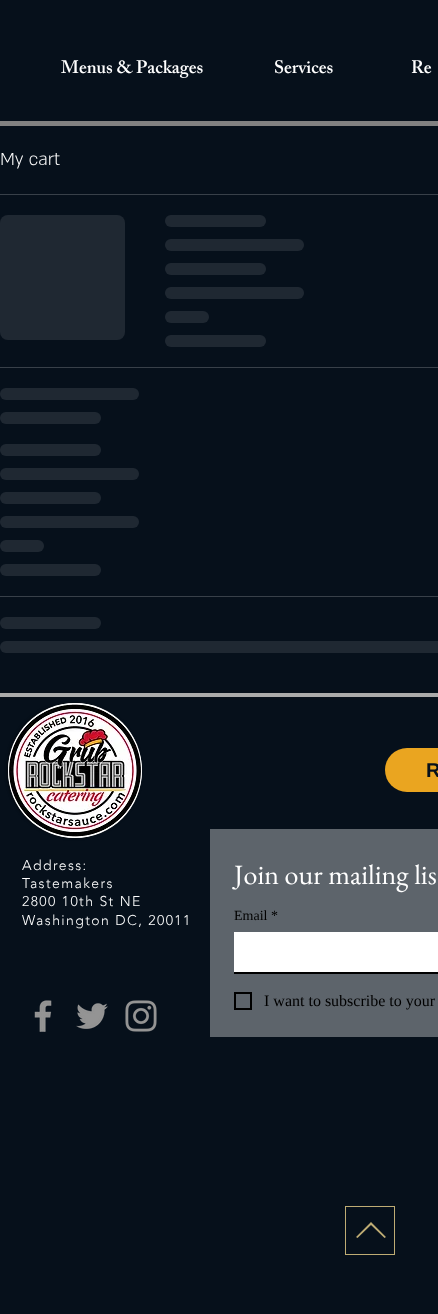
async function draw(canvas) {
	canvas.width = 438;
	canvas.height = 1314;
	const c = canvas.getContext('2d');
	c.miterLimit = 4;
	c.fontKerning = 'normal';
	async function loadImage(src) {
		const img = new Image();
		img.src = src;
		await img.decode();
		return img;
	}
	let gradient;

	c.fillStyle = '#06101b';
	c.fillRect(0, 0, 438, 1314);
	c.font = '600 18px "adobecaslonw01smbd"';
	c.fillStyle = '#fff';
	for (const [text, x, y] of [
		['Menus & Packages', 61, 73],
		['Services', 274, 73],
		['Re', 411, 73],
	]) {
		c.fillText(text, x, y);
	}
	c.fillStyle = '#818181';
	c.fillRect(0, 121, 438, 5);
	c.fillStyle = '#384049';
	c.fillRect(0, 194, 438, 1);
	c.font = '300 20px "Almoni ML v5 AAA"';
	c.fillStyle = '#fff';
	c.fillText('My cart', 0, 165);
	gradient = c.createLinearGradient(0, 278, 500, 278);
	gradient.addColorStop(0.25, '#1f2832');
	gradient.addColorStop(0.37, '#384049');
	gradient.addColorStop(0.63, '#1f2832');
	c.fillStyle = gradient;
	c.beginPath();
	c.roundRect(0, 215, 125, 125, 8);
	c.fill();
	gradient = c.createLinearGradient(165, 221, 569, 221);
	gradient.addColorStop(0.25, '#1f2832');
	gradient.addColorStop(0.37, '#384049');
	gradient.addColorStop(0.63, '#1f2832');
	c.fillStyle = gradient;
	c.beginPath();
	c.roundRect(165, 215, 101, 12, 6);
	c.fill();
	gradient = c.createLinearGradient(165, 245, 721, 245);
	gradient.addColorStop(0.25, '#1f2832');
	gradient.addColorStop(0.37, '#384049');
	gradient.addColorStop(0.63, '#1f2832');
	c.fillStyle = gradient;
	c.beginPath();
	c.roundRect(165, 239, 139, 12, 6);
	c.fill();
	gradient = c.createLinearGradient(165, 269, 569, 269);
	gradient.addColorStop(0.25, '#1f2832');
	gradient.addColorStop(0.37, '#384049');
	gradient.addColorStop(0.63, '#1f2832');
	c.fillStyle = gradient;
	c.beginPath();
	c.roundRect(165, 263, 101, 12, 6);
	c.fill();
	gradient = c.createLinearGradient(165, 293, 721, 293);
	gradient.addColorStop(0.25, '#1f2832');
	gradient.addColorStop(0.37, '#384049');
	gradient.addColorStop(0.63, '#1f2832');
	c.fillStyle = gradient;
	c.beginPath();
	c.roundRect(165, 287, 139, 12, 6);
	c.fill();
	gradient = c.createLinearGradient(165, 317, 341, 317);
	gradient.addColorStop(0.25, '#1f2832');
	gradient.addColorStop(0.37, '#384049');
	gradient.addColorStop(0.63, '#1f2832');
	c.fillStyle = gradient;
	c.beginPath();
	c.roundRect(165, 311, 44, 12, 6);
	c.fill();
	gradient = c.createLinearGradient(165, 341, 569, 341);
	gradient.addColorStop(0.25, '#1f2832');
	gradient.addColorStop(0.37, '#384049');
	gradient.addColorStop(0.63, '#1f2832');
	c.fillStyle = gradient;
	c.beginPath();
	c.roundRect(165, 335, 101, 12, 6);
	c.fill();
	c.fillStyle = '#384049';
	c.fillRect(0, 367, 438, 1);
	gradient = c.createLinearGradient(0, 394, 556, 394);
	gradient.addColorStop(0.25, '#1f2832');
	gradient.addColorStop(0.37, '#384049');
	gradient.addColorStop(0.63, '#1f2832');
	c.fillStyle = gradient;
	c.beginPath();
	c.roundRect(0, 388, 139, 12, 6);
	c.fill();
	gradient = c.createLinearGradient(0, 418, 404, 418);
	gradient.addColorStop(0.25, '#1f2832');
	gradient.addColorStop(0.37, '#384049');
	gradient.addColorStop(0.63, '#1f2832');
	c.fillStyle = gradient;
	c.beginPath();
	c.roundRect(0, 412, 101, 12, 6);
	c.fill();
	gradient = c.createLinearGradient(0, 450, 404, 450);
	gradient.addColorStop(0.25, '#1f2832');
	gradient.addColorStop(0.37, '#384049');
	gradient.addColorStop(0.63, '#1f2832');
	c.fillStyle = gradient;
	c.beginPath();
	c.roundRect(0, 444, 101, 12, 6);
	c.fill();
	gradient = c.createLinearGradient(0, 474, 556, 474);
	gradient.addColorStop(0.25, '#1f2832');
	gradient.addColorStop(0.37, '#384049');
	gradient.addColorStop(0.63, '#1f2832');
	c.fillStyle = gradient;
	c.beginPath();
	c.roundRect(0, 468, 139, 12, 6);
	c.fill();
	gradient = c.createLinearGradient(0, 498, 404, 498);
	gradient.addColorStop(0.25, '#1f2832');
	gradient.addColorStop(0.37, '#384049');
	gradient.addColorStop(0.63, '#1f2832');
	c.fillStyle = gradient;
	c.beginPath();
	c.roundRect(0, 492, 101, 12, 6);
	c.fill();
	gradient = c.createLinearGradient(0, 522, 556, 522);
	gradient.addColorStop(0.25, '#1f2832');
	gradient.addColorStop(0.37, '#384049');
	gradient.addColorStop(0.63, '#1f2832');
	c.fillStyle = gradient;
	c.beginPath();
	c.roundRect(0, 516, 139, 12, 6);
	c.fill();
	gradient = c.createLinearGradient(0, 546, 176, 546);
	gradient.addColorStop(0.25, '#1f2832');
	gradient.addColorStop(0.37, '#384049');
	gradient.addColorStop(0.63, '#1f2832');
	c.fillStyle = gradient;
	c.beginPath();
	c.roundRect(0, 540, 44, 12, 6);
	c.fill();
	gradient = c.createLinearGradient(0, 570, 404, 570);
	gradient.addColorStop(0.25, '#1f2832');
	gradient.addColorStop(0.37, '#384049');
	gradient.addColorStop(0.63, '#1f2832');
	c.fillStyle = gradient;
	c.beginPath();
	c.roundRect(0, 564, 101, 12, 6);
	c.fill();
	c.fillStyle = '#384049';
	c.fillRect(0, 596, 438, 1);
	gradient = c.createLinearGradient(0, 623, 404, 623);
	gradient.addColorStop(0.25, '#1f2832');
	gradient.addColorStop(0.37, '#384049');
	gradient.addColorStop(0.63, '#1f2832');
	c.fillStyle = gradient;
	c.beginPath();
	c.roundRect(0, 617, 101, 12, 6);
	c.fill();
	gradient = c.createLinearGradient(0, 647, 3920, 647);
	gradient.addColorStop(0.25, '#1f2832');
	gradient.addColorStop(0.37, '#384049');
	gradient.addColorStop(0.63, '#1f2832');
	c.fillStyle = gradient;
	c.beginPath();
	c.roundRect(0, 641, 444, 12, 6);
	c.fill();
	c.fillStyle = '#ababab';
	c.fillRect(0, 693, 438, 4);
	c.fillStyle = '#00000080';
	c.filter = 'blur(1.5px)';
	c.beginPath();
	c.roundRect(7, 703, 134, 135, 67);
	c.fill();
	c.filter = 'none';
	c.fillStyle = '#fff';
	c.beginPath();
	c.roundRect(8, 703, 134, 135, 67);
	c.fill();
	c.drawImage(await loadImage('img1.png'), 8, 703, 134, 135);
	c.fillStyle = '#eaa520';
	c.beginPath();
	c.roundRect(385, 748, 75, 44, 22);
	c.fill();
	c.font = 'bold 20px Liberation Sans';
	c.fillStyle = '#06101b';
	c.fillText('R', 426, 777);
	c.letterSpacing = '1.4px';
	c.font = '300 14px "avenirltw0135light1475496"';
	c.fillStyle = '#fff';
	for (const [text, x, y] of [
		['Address:', 22, 870],
		['Tastemakers', 22, 888],
		['2800 10th St NE', 22, 906],
		['Washington DC, 20011', 22, 925],
	]) {
		c.fillText(text, x, y);
	}
	c.fillStyle = '#5d646b';
	c.fillRect(210, 829, 228, 208);
	c.letterSpacing = '0px';
	c.font = '28px EB Garamond';
	c.fillStyle = '#fff';
	c.fillText('Join our mailing lis', 234, 884);
	c.font = '14px Liberation Serif';
	c.fillStyle = '#000';
	c.fillText('Email', 234, 920);
	c.fillText('*', 271, 920);
	c.fillStyle = '#fff';
	c.fillRect(234, 932, 204, 40);
	c.fillStyle = '#000';
	c.fillRect(234, 972, 204, 2);
	c.strokeStyle = '#000';
	c.lineWidth = 2;
	c.strokeRect(235, 993, 16, 16);
	c.font = '16px Liberation Serif';
	c.fillText('I want to subscribe to your', 264, 1006);
	c.drawImage(await loadImage('img2.png'), 34, 1000, 18, 32);
	c.drawImage(await loadImage('img3.png'), 76, 1003, 32, 26);
	c.drawImage(await loadImage('img4.png'), 125, 1000, 32, 32);
	c.strokeStyle = '#beac74';
	c.lineWidth = 1;
	c.strokeRect(345.5, 1206.5, 49, 48);
	c.fillStyle = '#beac74';
	c.beginPath();
	c.moveTo(356, 1237);
	c.lineTo(357.5, 1238);
	c.lineTo(371, 1225);
	c.lineTo(384.5, 1238);
	c.lineTo(386, 1237);
	c.lineTo(371, 1222);
	c.closePath();
	c.fill();
}

draw(document.querySelector('canvas'));
